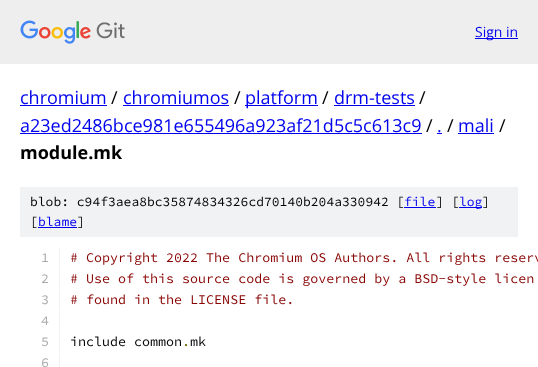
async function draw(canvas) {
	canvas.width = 538;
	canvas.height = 367;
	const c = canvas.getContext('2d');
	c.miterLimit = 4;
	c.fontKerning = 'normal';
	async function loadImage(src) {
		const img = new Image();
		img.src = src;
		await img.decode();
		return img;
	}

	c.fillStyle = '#fff';
	c.fillRect(0, 0, 538, 367);
	c.fillStyle = '#eee';
	c.fillRect(0, 0, 538, 64);
	c.drawImage(await loadImage('img1.png'), 20, 20, 105, 24);
	c.fillStyle = '#00e';
	c.fillRect(475, 38, 43, 1);
	c.font = '14px Open Sans';
	c.fillText('Sign in', 475, 37);
	c.font = '18px Open Sans';
	c.fillText('chromium', 20, 104);
	c.fillRect(20, 105, 87, 1);
	c.fillStyle = '#000';
	c.fillText('/', 111, 104);
	c.fillStyle = '#00e';
	c.fillText('chromiumos', 123, 104);
	c.fillRect(123, 105, 106, 1);
	c.fillStyle = '#000';
	c.fillText('/', 234, 104);
	c.fillStyle = '#00e';
	c.fillRect(245, 105, 73, 1);
	c.fillText('platform', 245, 104);
	c.fillStyle = '#000';
	c.fillText('/', 322, 104);
	c.fillStyle = '#00e';
	c.fillText('drm-tests', 334, 104);
	c.fillRect(334, 105, 81, 1);
	c.fillStyle = '#000';
	c.fillText('/', 419, 104);
	c.fillStyle = '#00e';
	c.fillText('a23ed2486bce981e655496a923af21d5c5c613c9', 20, 132);
	c.fillRect(20, 133, 402, 1);
	c.fillStyle = '#000';
	c.fillText('/', 426, 132);
	c.fillStyle = '#00e';
	c.fillText('.', 437, 132);
	c.fillRect(437, 133, 5, 1);
	c.fillStyle = '#000';
	c.fillText('/', 447, 132);
	c.fillStyle = '#00e';
	c.fillText('mali', 458, 132);
	c.fillRect(458, 133, 36, 1);
	c.fillStyle = '#000';
	c.fillText('/', 499, 132);
	c.font = 'bold 18px Open Sans';
	c.fillText('module.mk', 20, 159);
	c.fillStyle = '#f1f2f3';
	c.fillRect(20, 187, 498, 50);
	c.font = '200 13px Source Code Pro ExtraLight';
	c.fillStyle = '#000';
	c.fillText('blob: c94f3aea8bc35874834326cd70140b204a330942 [', 30, 206);
	c.fillStyle = '#00e';
	c.fillText('file', 404, 206);
	c.fillRect(404, 207, 32, 1);
	c.fillStyle = '#000';
	c.fillText('] [', 436, 206);
	c.fillStyle = '#00e';
	c.fillRect(459, 207, 23, 1);
	c.fillText('log', 459, 206);
	c.fillStyle = '#000';
	c.fillText(']', 482, 206);
	c.fillText('[', 30, 226);
	c.fillStyle = '#00e';
	c.fillText('blame', 38, 226);
	c.fillRect(38, 227, 39, 1);
	c.fillStyle = '#000';
	c.fillText(']', 77, 226);
	c.fillStyle = '#f1f2f3';
	c.fillRect(59, 248, 1, 20);
	c.font = '200 13.35px Source Code Pro ExtraLight';
	c.fillStyle = '#aaa';
	c.fillText('1', 41, 262);
	c.fillStyle = '#800';
	c.fillText('# Copyright 2022 The Chromium OS Authors. All rights reserv', 70, 262);
	c.fillStyle = '#f1f2f3';
	c.fillRect(59, 269, 1, 20);
	c.fillStyle = '#aaa';
	c.fillText('2', 41, 283);
	c.fillStyle = '#800';
	c.fillText('# Use of this source code is governed by a BSD-style licen', 70, 283);
	c.fillStyle = '#f1f2f3';
	c.fillRect(59, 290, 1, 20);
	c.fillStyle = '#aaa';
	c.fillText('3', 41, 304);
	c.fillStyle = '#800';
	c.fillText('# found in the LICENSE file.', 70, 304);
	c.fillStyle = '#f1f2f3';
	c.fillRect(59, 311, 1, 20);
	c.fillStyle = '#aaa';
	c.fillText('4', 41, 325);
	c.fillStyle = '#f1f2f3';
	c.fillRect(59, 332, 1, 20);
	c.fillStyle = '#aaa';
	c.fillText('5', 41, 346);
	c.fillStyle = '#000';
	c.fillText('include common mk', 70, 346);
	c.fillStyle = '#660';
	c.fillText('.', 182, 346);
	c.fillStyle = '#f1f2f3';
	c.fillRect(59, 353, 1, 14);
	c.fillStyle = '#aaa';
	c.fillText('6', 41, 367);
}

draw(document.querySelector('canvas'));
